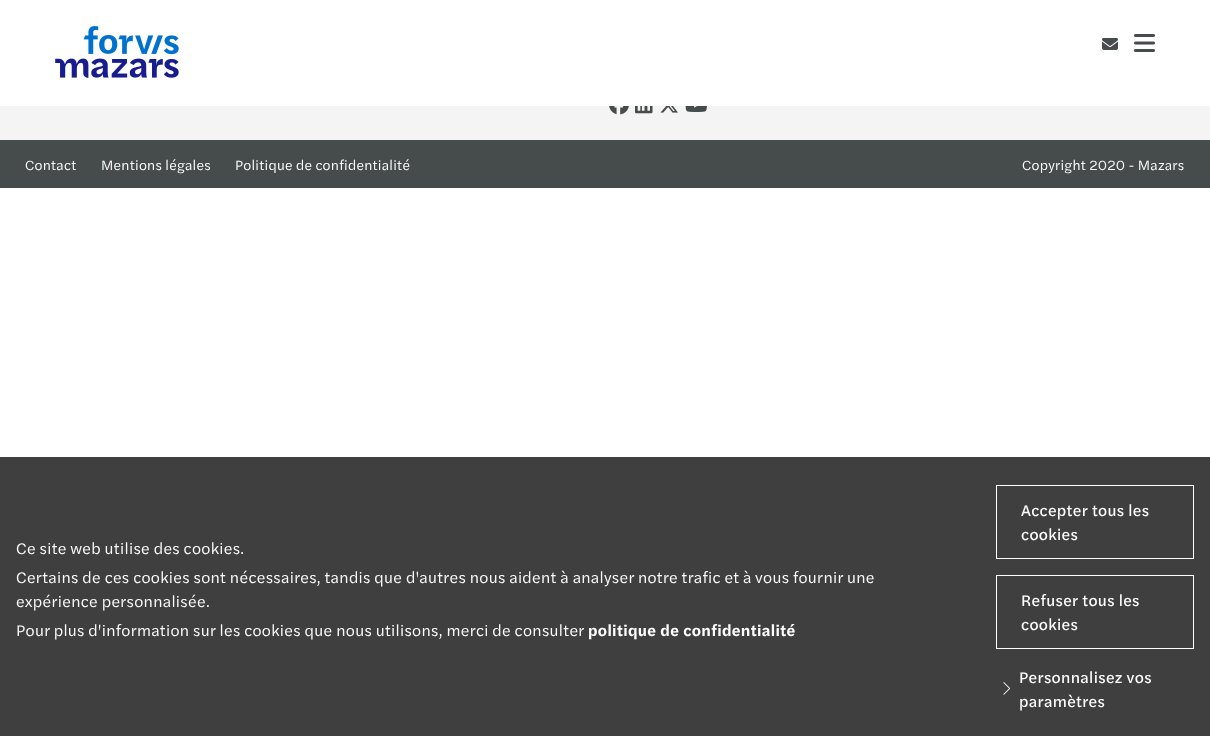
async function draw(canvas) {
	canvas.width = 1210;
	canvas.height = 736;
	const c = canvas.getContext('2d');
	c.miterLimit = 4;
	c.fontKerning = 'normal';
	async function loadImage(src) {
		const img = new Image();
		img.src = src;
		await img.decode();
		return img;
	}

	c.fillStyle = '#fff';
	c.fillRect(0, 0, 1210, 736);
	c.drawImage(await loadImage('img1.png'), 55, 26, 124, 52);
	c.drawImage(await loadImage('img2.png'), 1102, 38, 16, 12);
	c.drawImage(await loadImage('img3.png'), 1134, 34, 21, 18);
	c.fillStyle = '#f4f4f4';
	c.fillRect(0, 106, 1210, 34);
	c.drawImage(await loadImage('img4.png'), 609, 106, 20, 9);
	c.drawImage(await loadImage('img5.png'), 635, 106, 18, 8);
	c.drawImage(await loadImage('img6.png'), 660, 106, 18, 7);
	c.drawImage(await loadImage('img7.png'), 685, 106, 22, 6);
	c.fillStyle = '#464b4b';
	c.fillRect(0, 140, 1210, 48);
	c.letterSpacing = '0.25px';
	c.font = '14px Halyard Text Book';
	c.fillStyle = '#fff';
	for (const [text, x, y] of [
		['Contact', 25, 170],
		['Mentions légales', 101, 170],
		['Politique de confidentialité', 235, 170],
		['Copyright 2020 - Mazars', 1022, 170],
	]) {
		c.fillText(text, x, y);
	}
	c.fillStyle = '#3f3f3f';
	c.fillRect(0, 457, 1210, 279);
	c.letterSpacing = '0.32px';
	c.font = '16px Halyard Text Book';
	c.fillStyle = '#fff';
	for (const [text, x, y] of [
		['Ce site web utilise des cookies.', 16, 554],
		['Certains de ces cookies sont nécessaires, tandis que d\'autres nous aident à analyser notre trafic et à vous fournir une', 16, 583],
		['expérience personnalisée.', 16, 607],
		['Pour plus d\'information sur les cookies que nous utilisons, merci de consulter', 16, 636],
	]) {
		c.fillText(text, x, y);
	}
	c.font = '600 16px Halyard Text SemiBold';
	c.fillText('politique de confidentialité', 588, 636);
	c.strokeStyle = '#fff';
	c.strokeRect(996.5, 485.5, 197, 73);
	c.font = '16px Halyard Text';
	c.fillText('Accepter tous les', 1021, 516);
	c.fillText('cookies', 1021, 540);
	c.strokeRect(996.5, 575.5, 197, 73);
	c.fillText('Refuser tous les', 1021, 606);
	c.fillText('cookies', 1021, 630);
	c.drawImage(await loadImage('img8.png'), 1003, 682, 8, 13);
	c.fillText('Personnalisez vos', 1019, 683);
	c.fillText('paramètres', 1019, 707);
}

draw(document.querySelector('canvas'));
